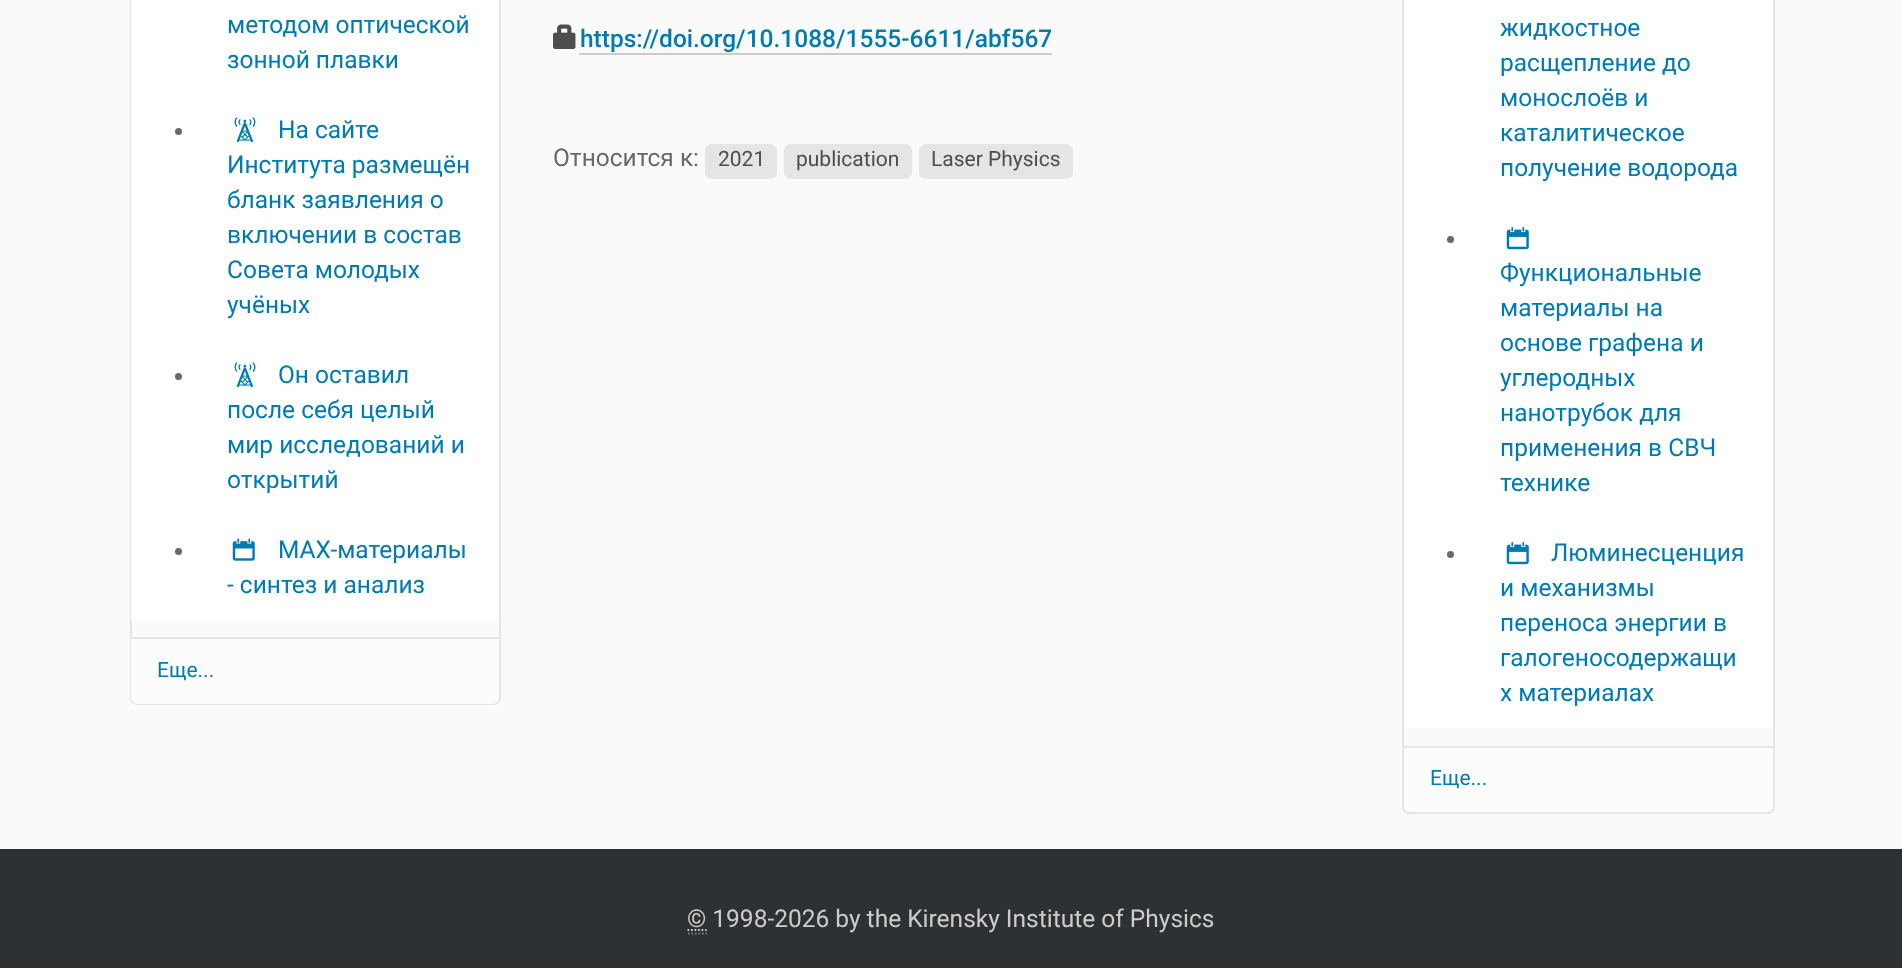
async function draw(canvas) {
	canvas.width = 1902;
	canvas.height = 968;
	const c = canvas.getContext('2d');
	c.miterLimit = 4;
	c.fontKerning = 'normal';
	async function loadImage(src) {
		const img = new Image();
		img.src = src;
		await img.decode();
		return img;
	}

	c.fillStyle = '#fafafa';
	c.fillRect(0, 0, 1902, 968);
	c.beginPath();
	c.roundRect(131, -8, 369, 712, 6);
	c.strokeStyle = '#e5e5e5';
	c.lineWidth = 2;
	c.stroke();
	c.fillStyle = '#fff';
	c.fillRect(131, 0, 368, 620);
	c.font = '24.5px Roboto';
	c.fillStyle = '#007bb1';
	c.fillText('методом оптической', 227, 33);
	c.fillText('зонной плавки', 227, 68);
	c.fillStyle = '#696969';
	c.beginPath();
	c.arc(178.5, 131.5, 3.5, 0, 2 * Math.PI);
	c.fill();
	c.drawImage(await loadImage('img1.png'), 234, 117, 22, 26);
	c.fillStyle = '#007bb1';
	for (const [text, x, y] of [
		['На сайте', 278, 138],
		['Института размещён', 227, 173],
		['бланк заявления о', 227, 208],
		['включении в состав', 227, 243],
		['Совета молодых', 227, 278],
		['учёных', 227, 313],
	]) {
		c.fillText(text, x, y);
	}
	c.fillStyle = '#696969';
	c.beginPath();
	c.arc(178.5, 376.5, 3.5, 0, 2 * Math.PI);
	c.fill();
	c.drawImage(await loadImage('img1.png'), 234, 362, 22, 26);
	c.fillStyle = '#007bb1';
	for (const [text, x, y] of [
		['Он оставил', 278, 383],
		['после себя целый', 227, 418],
		['мир исследований и', 227, 453],
		['открытий', 227, 488],
	]) {
		c.fillText(text, x, y);
	}
	c.fillStyle = '#696969';
	c.beginPath();
	c.arc(178.5, 551.5, 3.5, 0, 2 * Math.PI);
	c.fill();
	c.drawImage(await loadImage('img2.png'), 232, 538, 23, 23);
	c.fillStyle = '#007bb1';
	c.fillText('МАХ-материалы', 278, 558);
	c.fillText('- синтез и анализ', 227, 593);
	c.fillStyle = '#fcfcfd';
	c.beginPath();
	c.roundRect(131, 637, 368, 67, [0, 0, 7, 7]);
	c.fill();
	c.fillStyle = '#e5e5e5';
	c.fillRect(131, 637, 368, 2);
	c.font = '21px Roboto';
	c.fillStyle = '#007bb1';
	c.fillText('Еще...', 157, 677);
	c.drawImage(await loadImage('img3.png'), 553, 24, 23, 25);
	c.font = '500 24.5px Roboto';
	c.fillText('https://doi.org/10.1088/1555-6611/abf567', 580, 47);
	c.fillStyle = '#ccc';
	c.fillRect(579, 53, 473, 2);
	c.font = '24.5px Roboto';
	c.fillStyle = '#696969';
	c.fillText('Относится к:', 553, 166);
	c.fillStyle = '#e5e5e5';
	c.beginPath();
	c.roundRect(705, 144, 72, 35, 7);
	c.fill();
	c.font = '21px Roboto';
	c.fillStyle = '#4d4d4d';
	c.fillText('2021', 718, 166);
	c.fillStyle = '#e5e5e5';
	c.beginPath();
	c.roundRect(784, 144, 128, 35, 7);
	c.fill();
	c.fillStyle = '#4d4d4d';
	c.fillText('publication', 796, 166);
	c.fillStyle = '#e5e5e5';
	c.beginPath();
	c.roundRect(919, 144, 154, 35, 7);
	c.fill();
	c.fillStyle = '#4d4d4d';
	c.fillText('Laser Physics', 931, 166);
	c.beginPath();
	c.roundRect(1403, -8, 371, 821, 6);
	c.stroke();
	c.fillStyle = '#fff';
	c.fillRect(1404, 0, 369, 728);
	c.font = '24.5px Roboto';
	c.fillStyle = '#007bb1';
	for (const [text, x, y] of [
		['жидкостное', 1500, 36],
		['расщепление до', 1500, 71],
		['монослоёв и', 1500, 106],
		['каталитическое', 1500, 141],
		['получение водорода', 1500, 176],
	]) {
		c.fillText(text, x, y);
	}
	c.fillStyle = '#696969';
	c.beginPath();
	c.arc(1450.5, 239.5, 3.5, 0, 2 * Math.PI);
	c.fill();
	c.drawImage(await loadImage('img4.png'), 1506, 227, 23, 23);
	c.fillStyle = '#007bb1';
	for (const [text, x, y] of [
		['Функциональные', 1500, 281],
		['материалы на', 1500, 316],
		['основе графена и', 1500, 351],
		['углеродных', 1500, 386],
		['нанотрубок для', 1500, 421],
		['применения в СВЧ', 1500, 456],
		['технике', 1500, 491],
	]) {
		c.fillText(text, x, y);
	}
	c.fillStyle = '#696969';
	c.beginPath();
	c.arc(1450.5, 554.5, 3.5, 0, 2 * Math.PI);
	c.fill();
	c.drawImage(await loadImage('img4.png'), 1506, 542, 23, 23);
	c.fillStyle = '#007bb1';
	for (const [text, x, y] of [
		['Люминесценция', 1551, 561],
		['и механизмы', 1500, 596],
		['переноса энергии в', 1500, 631],
		['галогеносодержащи', 1500, 666],
		['х материалах', 1500, 701],
	]) {
		c.fillText(text, x, y);
	}
	c.fillStyle = '#fcfcfd';
	c.beginPath();
	c.roundRect(1404, 746, 369, 66, [0, 0, 7, 7]);
	c.fill();
	c.fillStyle = '#e5e5e5';
	c.fillRect(1404, 746, 369, 2);
	c.font = '21px Roboto';
	c.fillStyle = '#007bb1';
	c.fillText('Еще...', 1430, 785);
	c.fillStyle = '#2e3133';
	c.fillRect(0, 849, 1902, 119);
	c.beginPath();
	c.moveTo(688, 933.5);
	c.lineTo(707, 933.5);
	c.strokeStyle = '#777';
	c.lineWidth = 1.8;
	c.setLineDash([1.75, 1.75]);
	c.stroke();
	c.beginPath();
	c.moveTo(687.5, 930);
	c.lineTo(706.5, 930);
	c.strokeStyle = '#ccc';
	c.stroke();
	c.font = '24.5px Roboto';
	c.fillStyle = '#ccc';
	c.fillText('© 1998-2026 by the Kirensky Institute of Physics', 687, 927);
}

draw(document.querySelector('canvas'));
